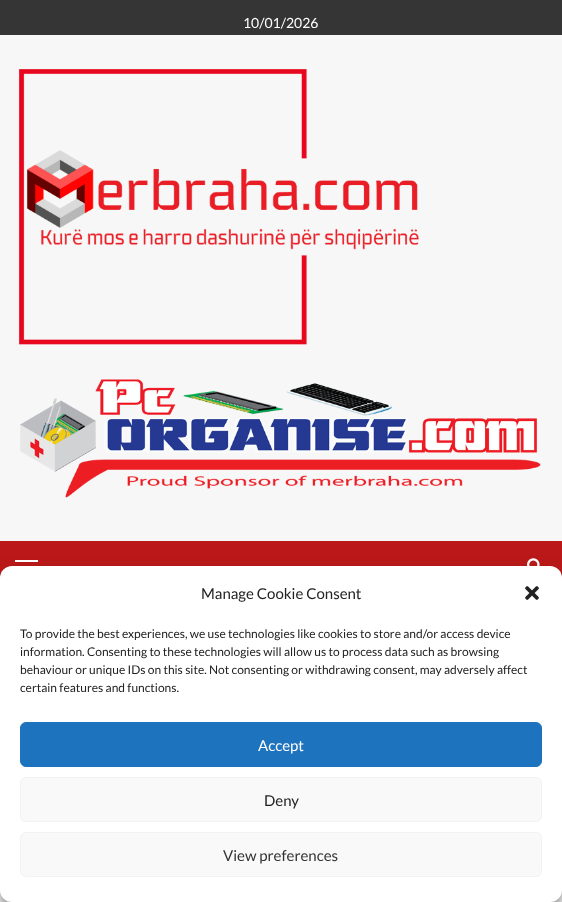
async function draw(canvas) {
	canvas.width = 562;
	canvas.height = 902;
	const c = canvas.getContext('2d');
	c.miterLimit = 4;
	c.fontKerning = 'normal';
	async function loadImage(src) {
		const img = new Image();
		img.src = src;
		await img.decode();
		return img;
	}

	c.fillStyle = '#f7f7f7';
	c.fillRect(0, 0, 562, 902);
	c.fillStyle = '#353535';
	c.fillRect(0, 0, 562, 35);
	c.font = '14px Lato';
	c.fillStyle = '#fff';
	c.fillText('10/01/2026', 243, 28);
	c.drawImage(await loadImage('img1.png'), 18, 69, 401, 276);
	c.drawImage(await loadImage('img2.png'), 20, 379, 521, 119);
	c.fillStyle = '#bb1919';
	c.fillRect(0, 541, 562, 37);
	c.fillStyle = '#fff';
	c.fillRect(15, 560, 23, 2);
	c.drawImage(await loadImage('img3.png'), 527, 558, 13, 8);
	c.fillStyle = '#0000003b';
	c.filter = 'blur(3px)';
	c.beginPath();
	c.roundRect(0, 572, 562, 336, 12);
	c.fill();
	c.filter = 'none';
	c.fillStyle = '#00000030';
	c.filter = 'blur(10px)';
	c.beginPath();
	c.roundRect(0, 576, 562, 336, 12);
	c.fill();
	c.filter = 'none';
	c.fillStyle = '#fff';
	c.beginPath();
	c.roundRect(0, 566, 562, 336, 12);
	c.fill();
	c.font = '15px Lato';
	c.fillStyle = '#222';
	c.fillText('Manage Cookie Consent', 201, 599);
	c.drawImage(await loadImage('img4.png'), 525, 586, 14, 14);
	c.font = '12px Lato';
	for (const [text, x, y] of [
		['To provide the best experiences, we use technologies like cookies to store and/or access device', 20, 638],
		['information. Consenting to these technologies will allow us to process data such as browsing', 20, 656],
		['behaviour or unique IDs on this site. Not consenting or withdrawing consent, may adversely affect', 20, 674],
		['certain features and functions.', 20, 692],
	]) {
		c.fillText(text, x, y);
	}
	c.fillStyle = '#1e73be';
	c.beginPath();
	c.roundRect(20.5, 722.5, 521, 44, 5.5);
	c.fill();
	c.strokeStyle = '#1e73be';
	c.stroke();
	c.font = '15px Lato';
	c.fillStyle = '#fff';
	c.fillText('Accept', 258, 751);
	c.fillStyle = '#f9f9f9';
	c.beginPath();
	c.roundRect(20.5, 777.5, 521, 44, 5.5);
	c.fill();
	c.strokeStyle = '#f2f2f2';
	c.stroke();
	c.fillStyle = '#222';
	c.fillText('Deny', 264, 806);
	c.fillStyle = '#f9f9f9';
	c.beginPath();
	c.roundRect(20.5, 832.5, 521, 44, 5.5);
	c.fill();
	c.stroke();
	c.fillStyle = '#333';
	c.fillText('View preferences', 223, 861);
}

draw(document.querySelector('canvas'));
